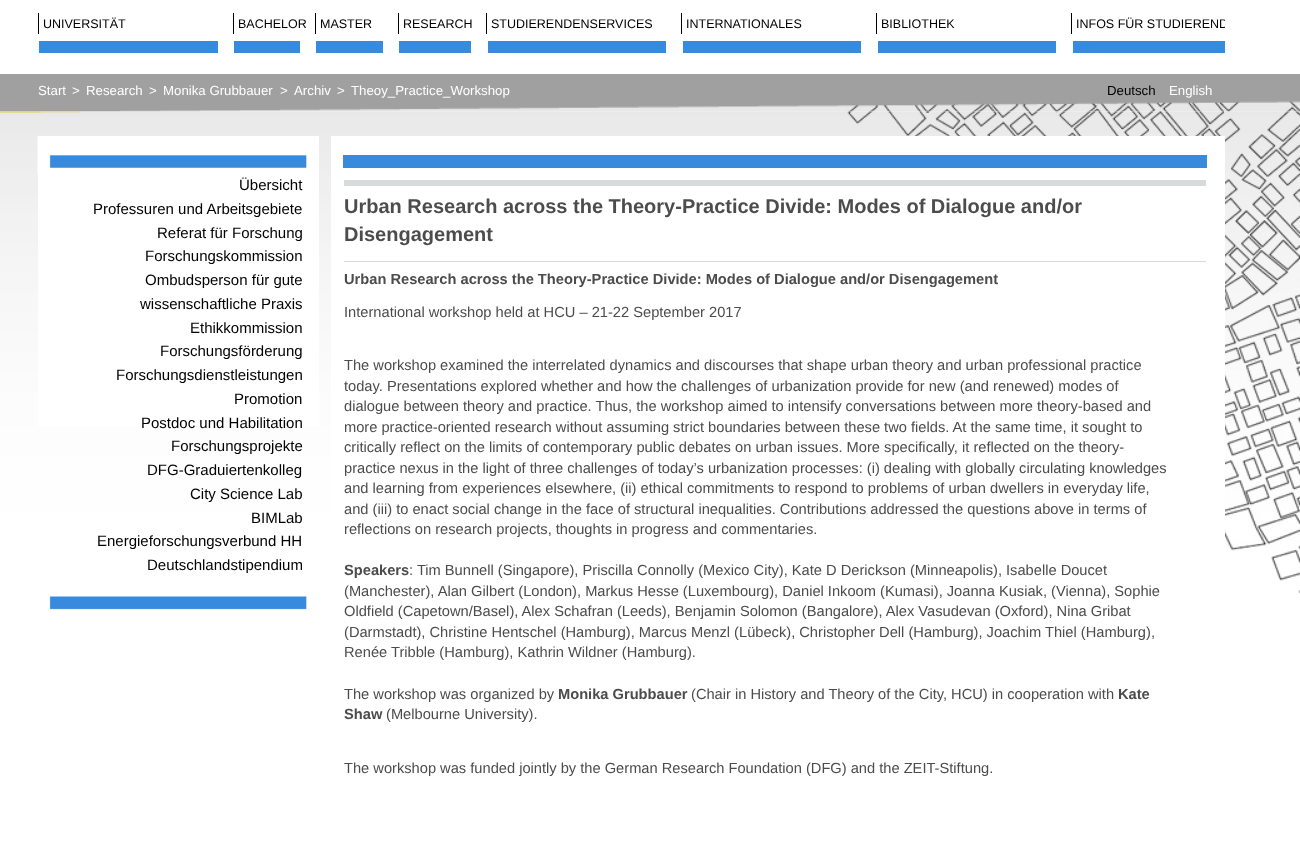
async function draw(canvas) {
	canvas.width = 1300;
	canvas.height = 850;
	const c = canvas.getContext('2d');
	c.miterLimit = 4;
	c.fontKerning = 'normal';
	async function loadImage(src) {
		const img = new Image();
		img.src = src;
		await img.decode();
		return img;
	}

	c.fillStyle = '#fff';
	c.fillRect(0, 0, 1300, 850);
	c.fillStyle = '#388adc';
	c.fillRect(39, 41, 179, 12);
	c.fillStyle = '#000';
	c.fillRect(38, 13, 1, 21);
	c.font = '12.5px Liberation Sans';
	c.fillText('UNIVERSITÄT', 43, 28);
	c.fillStyle = '#388adc';
	c.fillRect(234, 41, 66, 12);
	c.fillStyle = '#000';
	c.fillRect(233, 13, 1, 21);
	c.fillText('BACHELOR', 238, 28);
	c.fillStyle = '#388adc';
	c.fillRect(316, 41, 67, 12);
	c.fillStyle = '#000';
	c.fillRect(315, 13, 1, 21);
	c.fillText('MASTER', 320, 28);
	c.fillStyle = '#388adc';
	c.fillRect(399, 41, 72, 12);
	c.fillStyle = '#000';
	c.fillRect(398, 13, 1, 21);
	c.fillText('RESEARCH', 403, 28);
	c.fillStyle = '#388adc';
	c.fillRect(488, 41, 178, 12);
	c.fillStyle = '#000';
	c.fillRect(486, 13, 1, 21);
	c.fillText('STUDIERENDENSERVICES', 491, 28);
	c.fillStyle = '#388adc';
	c.fillRect(683, 41, 178, 12);
	c.fillStyle = '#000';
	c.fillRect(681, 13, 1, 21);
	c.fillText('INTERNATIONALES', 686, 28);
	c.fillStyle = '#388adc';
	c.fillRect(878, 41, 178, 12);
	c.fillStyle = '#000';
	c.fillRect(876, 13, 1, 21);
	c.fillText('BIBLIOTHEK', 881, 28);
	c.fillStyle = '#388adc';
	c.fillRect(1073, 41, 152, 12);
	c.fillStyle = '#000';
	c.fillRect(1071, 13, 1, 21);
	c.save();
	c.beginPath();
	c.rect(1073, 13, 152, 21);
	c.clip();
	c.fillText('INFOS FÜR STUDIEREND', 1076, 28);
	c.restore();
	c.drawImage(await loadImage('img1.png'), 0, 74, 1300, 38);
	c.font = '13.25px Liberation Sans';
	c.fillStyle = '#fff';
	for (const [text, x, y] of [
		['Start', 38, 95],
		['>', 72, 95],
		['Research', 86, 95],
		['>', 149, 95],
		['Monika Grubbauer', 163, 95],
		['>', 280, 95],
		['Archiv', 294, 95],
		['>', 337, 95],
		['Theoy_Practice_Workshop', 351, 95],
	]) {
		c.fillText(text, x, y);
	}
	c.fillStyle = '#000';
	c.fillText('Deutsch', 1107, 95);
	c.fillStyle = '#fff';
	c.fillText('English', 1169, 95);
	c.drawImage(await loadImage('img2.png'), 0, 111, 1300, 482);
	c.fillRect(38, 136, 281, 290);
	c.drawImage(await loadImage('img3.png'), 37, 137, 270, 37);
	c.font = '15px Liberation Sans';
	c.fillStyle = '#000';
	for (const [text, x, y] of [
		['Übersicht', 239, 190],
		['Professuren und Arbeitsgebiete', 93, 214],
		['Referat für Forschung', 157, 238],
		['Forschungskommission', 145, 261],
		['Ombudsperson für gute', 145, 285],
		['wissenschaftliche Praxis', 140, 309],
		['Ethikkommission', 190, 333],
		['Forschungsförderung', 160, 356],
		['Forschungsdienstleistungen', 116, 380],
		['Promotion', 234, 404],
		['Postdoc und Habilitation', 141, 428],
		['Forschungsprojekte', 171, 451],
		['DFG-Graduiertenkolleg', 147, 475],
		['City Science Lab', 190, 499],
		['BIMLab', 251, 523],
		['Energieforschungsverbund HH', 97, 546],
		['Deutschlandstipendium', 147, 570],
	]) {
		c.fillText(text, x, y);
	}
	c.drawImage(await loadImage('img4.png'), 49, 596, 258, 14);
	for (const [x, y, w, h, color] of [
		[331, 136, 894, 405, '#fff'],
		[343, 155, 864, 13, '#388adc'],
		[344, 180, 862, 6, '#d6dadb'],
		[344, 261, 862, 1, '#d6dadb'],
	]) {
		c.fillStyle = color;
		c.fillRect(x, y, w, h);
	}
	c.font = 'bold 20px Liberation Sans';
	c.fillStyle = '#4c4c4c';
	c.fillText('Urban Research across the Theory-Practice Divide: Modes of Dialogue and/or', 344, 213);
	c.fillText('Disengagement', 344, 241);
	c.font = 'bold 14.67px Liberation Sans';
	c.fillText('Urban Research across the Theory-Practice Divide: Modes of Dialogue and/or Disengagement', 344, 284);
	c.font = '14.67px Liberation Sans';
	for (const [text, x, y] of [
		['International workshop held at HCU – 21-22 September 2017', 344, 317],
		['The workshop examined the interrelated dynamics and discourses that shape urban theory and urban professional practice', 344, 370],
		['today. Presentations explored whether and how the challenges of urbanization provide for new (and renewed) modes of', 344, 391],
		['dialogue between theory and practice. Thus, the workshop aimed to intensify conversations between more theory-based and', 344, 411],
		['more practice-oriented research without assuming strict boundaries between these two fields. At the same time, it sought to', 344, 432],
		['critically reflect on the limits of contemporary public debates on urban issues. More specifically, it reflected on the theory-', 344, 452],
		['practice nexus in the light of three challenges of today’s urbanization processes: (i) dealing with globally circulating knowledges', 344, 473],
		['and learning from experiences elsewhere, (ii) ethical commitments to respond to problems of urban dwellers in everyday life,', 344, 493],
		['and (iii) to enact social change in the face of structural inequalities. Contributions addressed the questions above in terms of', 344, 514],
		['reflections on research projects, thoughts in progress and commentaries.', 344, 534],
	]) {
		c.fillText(text, x, y);
	}
	c.font = 'bold 14.67px Liberation Sans';
	c.fillText('Speakers', 344, 575);
	c.font = '14.67px Liberation Sans';
	for (const [text, x, y] of [
		[': Tim Bunnell (Singapore), Priscilla Connolly (Mexico City), Kate D Derickson (Minneapolis), Isabelle Doucet', 409, 575],
		['(Manchester), Alan Gilbert (London), Markus Hesse (Luxembourg), Daniel Inkoom (Kumasi), Joanna Kusiak, (Vienna), Sophie', 344, 596],
		['Oldfield (Capetown/Basel), Alex Schafran (Leeds), Benjamin Solomon (Bangalore), Alex Vasudevan (Oxford), Nina Gribat', 344, 616],
		['(Darmstadt), Christine Hentschel (Hamburg), Marcus Menzl (Lübeck), Christopher Dell (Hamburg), Joachim Thiel (Hamburg),', 344, 637],
		['Renée Tribble (Hamburg), Kathrin Wildner (Hamburg).', 344, 657],
		['The workshop was organized by', 344, 699],
	]) {
		c.fillText(text, x, y);
	}
	c.font = 'bold 14.67px Liberation Sans';
	c.fillText('Monika Grubbauer', 558, 699);
	c.font = '14.67px Liberation Sans';
	c.fillText('(Chair in History and Theory of the City, HCU) in cooperation with', 691, 699);
	c.font = 'bold 14.67px Liberation Sans';
	c.fillText('Kate', 1118, 699);
	c.fillText('Shaw', 344, 719);
	c.font = '14.67px Liberation Sans';
	c.fillText('(Melbourne University).', 386, 719);
	c.fillText('The workshop was funded jointly by the German Research Foundation (DFG) and the ZEIT-Stiftung.', 344, 773);
}

draw(document.querySelector('canvas'));
